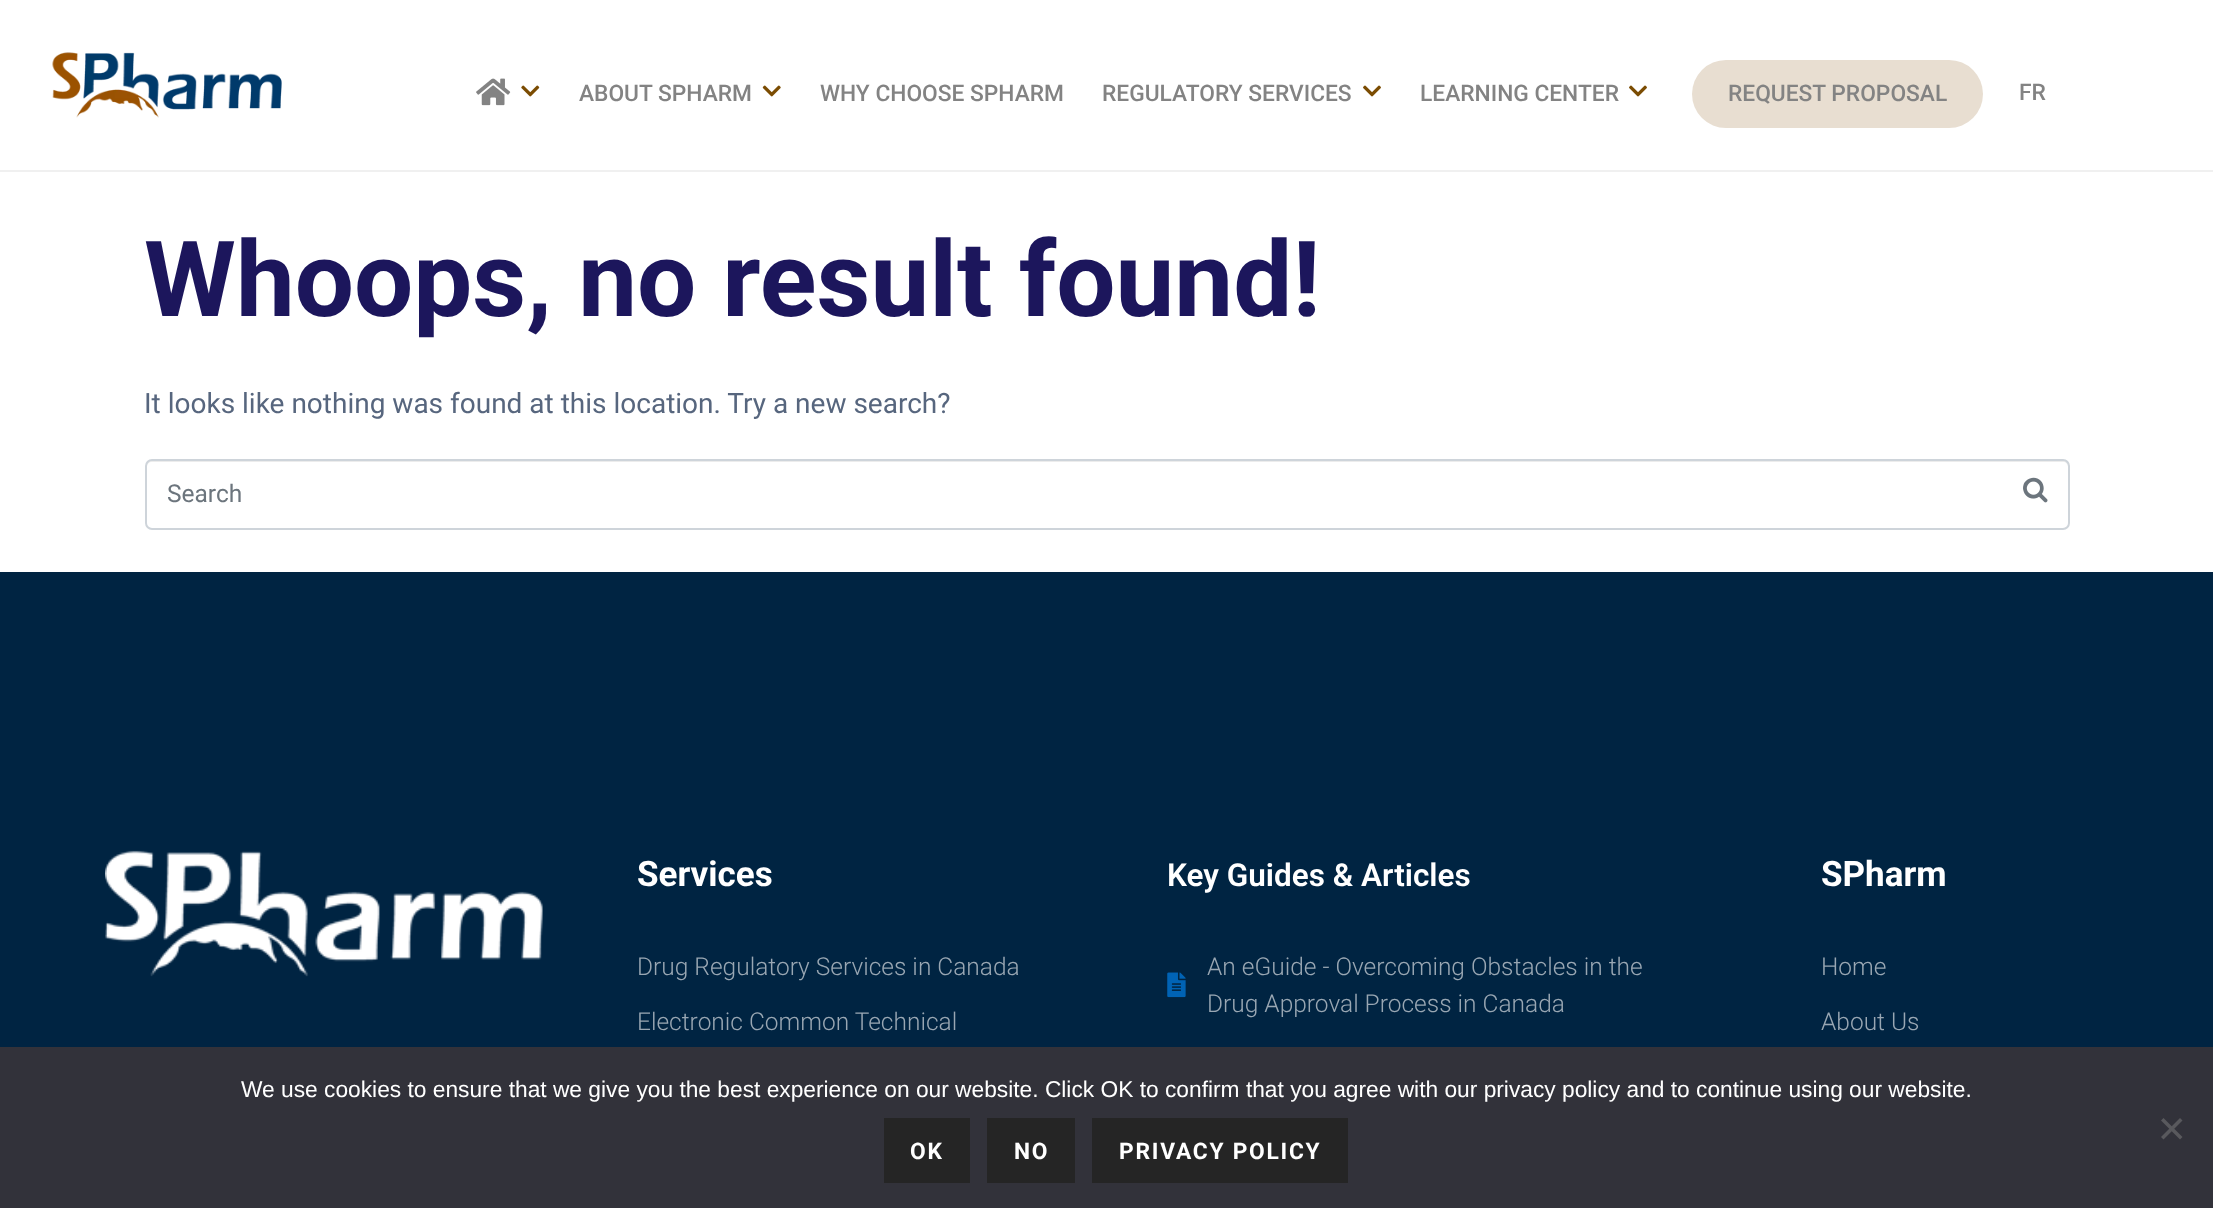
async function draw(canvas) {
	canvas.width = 2213;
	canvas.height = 1208;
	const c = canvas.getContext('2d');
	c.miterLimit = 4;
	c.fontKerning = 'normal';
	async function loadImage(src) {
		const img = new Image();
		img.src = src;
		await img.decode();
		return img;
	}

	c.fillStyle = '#fff';
	c.fillRect(0, 0, 2213, 1208);
	c.fillStyle = '#f0f0f0';
	c.fillRect(0, 170, 2213, 2);
	c.drawImage(await loadImage('img1.png'), 52, 52, 230, 66);
	c.drawImage(await loadImage('img2.png'), 476, 78, 35, 28);
	c.drawImage(await loadImage('img3.png'), 521, 85, 19, 12);
	c.font = '500 22.75px Roboto';
	c.fillStyle = '#838383';
	c.fillText('ABOUT SPHARM', 579, 101);
	c.drawImage(await loadImage('img4.png'), 762, 85, 19, 12);
	c.fillText('WHY CHOOSE SPHARM', 820, 101);
	c.fillText('REGULATORY SERVICES', 1102, 101);
	c.drawImage(await loadImage('img5.png'), 1363, 85, 18, 12);
	c.fillText('LEARNING CENTER', 1420, 101);
	c.drawImage(await loadImage('img5.png'), 1629, 85, 18, 12);
	c.fillStyle = '#e8ded1';
	c.beginPath();
	c.roundRect(1692, 60, 291, 68, 34);
	c.fill();
	c.fillStyle = '#838383';
	c.fillText('REQUEST PROPOSAL', 1728, 101);
	c.fillText('FR', 2019, 100);
	c.font = 'bold 105px Roboto';
	c.fillStyle = '#1c165c';
	c.fillText('Whoops, no result found!', 144, 316);
	c.font = '28px Roboto';
	c.fillStyle = '#57667e';
	c.fillText('It looks like nothing was found at this location. Try a new search?', 144, 413);
	c.fillStyle = '#ececec';
	c.beginPath();
	c.moveTo(152, 462);
	c.lineTo(2063, 462);
	c.bezierCurveTo(2066, 462, 2068, 464, 2068, 467);
	c.lineTo(2068, 525);
	c.lineTo(2067, 528);
	c.bezierCurveTo(2068, 527, 2069, 525, 2069, 524);
	c.lineTo(2069, 465);
	c.bezierCurveTo(2069, 462, 2067, 460, 2064, 460);
	c.lineTo(152, 460);
	c.bezierCurveTo(149, 460, 147, 462, 147, 465);
	c.lineTo(147, 467);
	c.bezierCurveTo(147, 464, 149, 462, 152, 462);
	c.closePath();
	c.fill();
	c.beginPath();
	c.roundRect(146, 460, 1923, 69, 6);
	c.strokeStyle = '#ced4da';
	c.lineWidth = 2;
	c.stroke();
	c.font = '24.5px Roboto';
	c.fillStyle = '#6c757d';
	c.fillText('Search', 167, 502);
	c.drawImage(await loadImage('img6.png'), 2023, 477, 25, 26);
	c.fillStyle = '#002442';
	c.fillRect(0, 572, 2213, 475);
	c.drawImage(await loadImage('img7.png'), 105, 850, 438, 127);
	c.font = 'bold 35px Roboto';
	c.fillStyle = '#fff';
	c.fillText('Services', 637, 886);
	c.font = '300 24.5px Roboto';
	c.fillStyle = '#99a7b3';
	c.fillText('Drug Regulatory Services in Canada', 637, 975);
	c.fillText('Electronic Common Technical', 637, 1030);
	c.font = '600 31.5px Roboto';
	c.fillStyle = '#fff';
	c.fillText('Key Guides & Articles', 1167, 886);
	c.drawImage(await loadImage('img8.png'), 1167, 972, 19, 26);
	c.font = '300 24.5px Roboto';
	c.fillStyle = '#99a7b3';
	c.fillText('An eGuide - Overcoming Obstacles in the', 1207, 975);
	c.fillText('Drug Approval Process in Canada', 1207, 1012);
	c.font = 'bold 35px Roboto';
	c.fillStyle = '#fff';
	c.fillText('SPharm', 1821, 886);
	c.font = '300 24.5px Roboto';
	c.fillStyle = '#99a7b3';
	c.fillText('Home', 1821, 975);
	c.fillText('About Us', 1821, 1030);
	c.fillStyle = '#32323a';
	c.fillRect(0, 1047, 2213, 161);
	c.font = '22.75px Liberation Sans';
	c.fillStyle = '#fff';
	c.fillText('We use cookies to ensure that we give you the best experience on our website. Click OK to confirm that you agree with our privacy policy and to continue using our website.', 241, 1097);
	c.fillStyle = '#59595d';
	c.beginPath();
	c.moveTo(2180, 1118);
	c.lineTo(2182.5, 1120.5);
	c.lineTo(2163.5, 1139.5);
	c.lineTo(2161, 1137);
	c.closePath();
	c.fill();
	c.beginPath();
	c.moveTo(2161, 1120.5);
	c.lineTo(2163.5, 1118);
	c.lineTo(2182.5, 1137);
	c.lineTo(2180, 1139.5);
	c.closePath();
	c.fill();
	c.fillStyle = '#252525';
	c.fillRect(884, 1118, 86, 65);
	c.letterSpacing = '1.75px';
	c.font = 'bold 22.75px Roboto';
	c.fillStyle = '#fff';
	c.fillText('OK', 910, 1159);
	c.fillStyle = '#252525';
	c.fillRect(987, 1118, 88, 65);
	c.fillStyle = '#fff';
	c.fillText('NO', 1014, 1159);
	c.fillStyle = '#252525';
	c.fillRect(1092, 1118, 256, 65);
	c.fillStyle = '#fff';
	c.fillText('PRIVACY POLICY', 1119, 1159);
}

draw(document.querySelector('canvas'));
